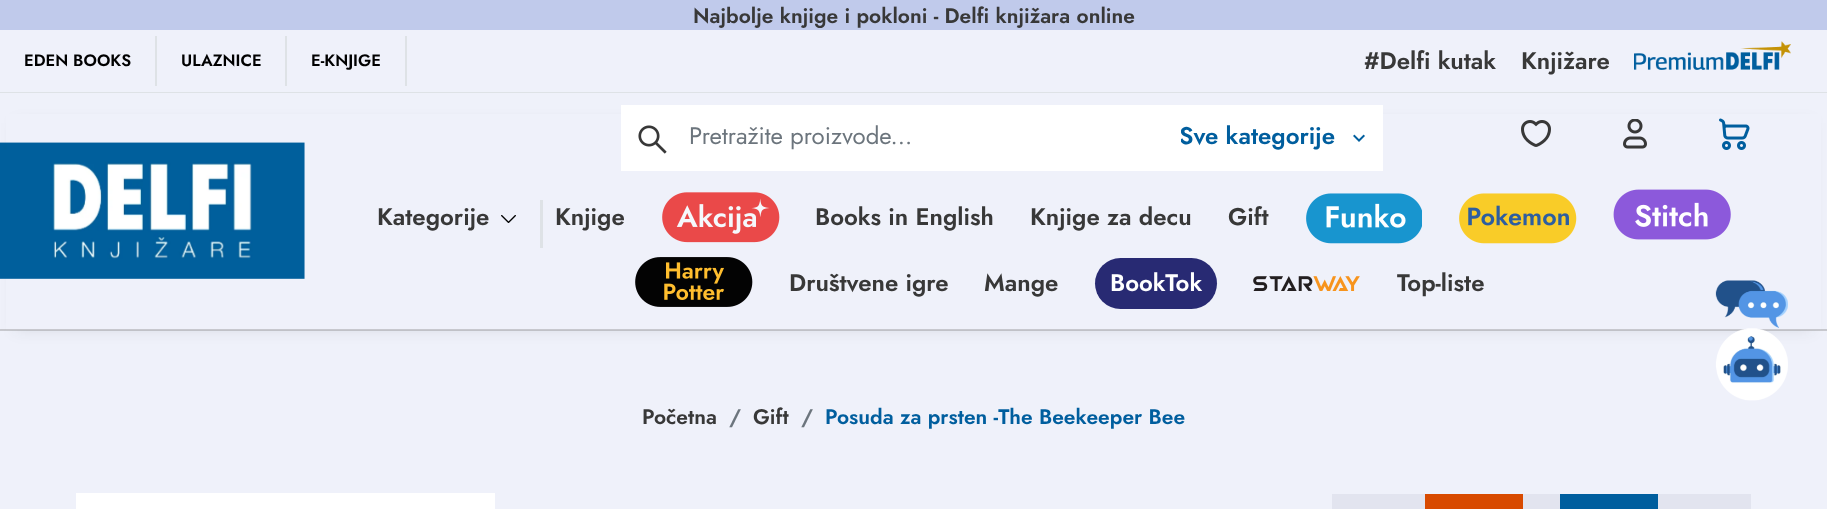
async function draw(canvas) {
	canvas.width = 1827;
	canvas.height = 509;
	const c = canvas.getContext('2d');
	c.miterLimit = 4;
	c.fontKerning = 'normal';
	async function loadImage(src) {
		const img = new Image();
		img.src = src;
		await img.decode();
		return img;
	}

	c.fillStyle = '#eff1fa';
	c.fillRect(0, 0, 1827, 509);
	c.fillStyle = '#c0caeb';
	c.fillRect(0, 0, 1827, 30);
	c.font = '600 21px Jost';
	c.fillStyle = '#383838';
	c.fillText('Najbolje knjige i pokloni - Delfi knjižara online', 693, 23);
	c.fillStyle = '#dee2e6';
	c.fillRect(0, 92, 1827, 1);
	c.fillRect(155, 36, 2, 50);
	c.font = '600 16.5px Jost';
	c.fillStyle = '#000';
	c.fillText('EDEN BOOKS', 24, 66);
	c.fillStyle = '#dee2e6';
	c.fillRect(285, 36, 2, 50);
	c.fillStyle = '#000';
	c.fillText('ULAZNICE', 181, 66);
	c.fillStyle = '#dee2e6';
	c.fillRect(405, 36, 2, 50);
	c.fillStyle = '#000';
	c.fillText('E-KNJIGE', 311, 66);
	c.font = '600 24px Jost';
	c.fillStyle = '#383838';
	c.fillText('#Delfi kutak', 1364, 69);
	c.fillText('Knjižare', 1521, 69);
	c.drawImage(await loadImage('img1.png'), 1634, 41, 157, 29);
	c.fillStyle = '#2123261a';
	c.filter = 'blur(7.5px)';
	c.beginPath();
	c.rect(15, 123, 1797, 207);
	c.fill();
	c.filter = 'none';
	c.fillStyle = '#eff1fa';
	c.fillRect(6, 114, 1815, 216);
	c.fillStyle = '#8080805c';
	c.fillRect(0, 329, 1827, 2);
	c.drawImage(await loadImage('img2.png'), 0, 142, 305, 137);
	c.fillStyle = '#fff';
	c.fillRect(621, 105, 762, 66);
	c.drawImage(await loadImage('img3.png'), 638, 125, 29, 29);
	c.fillStyle = '#005e9e';
	c.fillText('Sve kategorije', 1179, 144);
	c.fillStyle = '#fff';
	c.fillRect(1179, 130, 2, 12);
	c.font = '24px Jost';
	c.fillStyle = '#6c757d';
	c.fillText('Pretražite proizvode...', 689, 144);
	c.drawImage(await loadImage('img4.png'), 1353, 134, 12, 8);
	c.drawImage(await loadImage('img5.png'), 1521, 120, 30, 27);
	c.drawImage(await loadImage('img6.png'), 1623, 119, 24, 30);
	c.drawImage(await loadImage('img7.png'), 1719, 118, 31, 32);
	c.font = '600 24px Jost';
	c.fillStyle = '#383838';
	c.fillText('Kategorije', 377, 225);
	c.drawImage(await loadImage('img8.png'), 501, 215, 15, 8);
	c.fillStyle = '#dee2e6';
	c.fillRect(540, 200, 3, 48);
	c.fillStyle = '#383838';
	c.fillText('Knjige', 555, 225);
	c.drawImage(await loadImage('img9.png'), 662, 192, 118, 51);
	for (const [text, x, y] of [
		['Books in English', 815, 225],
		['Knjige za decu', 1030, 225],
		['Gift', 1228, 225],
	]) {
		c.fillText(text, x, y);
	}
	c.drawImage(await loadImage('img10.png'), 1306, 193, 116, 51);
	c.drawImage(await loadImage('img11.png'), 1459, 193, 118, 51);
	c.drawImage(await loadImage('img12.png'), 1613, 189, 118, 51);
	c.drawImage(await loadImage('img13.png'), 635, 257, 118, 50);
	c.fillText('Društvene igre', 789, 291);
	c.fillText('Mange', 984, 291);
	c.fillStyle = '#282a73';
	c.beginPath();
	c.roundRect(1095, 258, 122, 51, 25.5);
	c.fill();
	c.fillStyle = '#fff';
	c.fillText('BookTok', 1110, 291);
	c.drawImage(await loadImage('img14.png'), 1253, 276, 107, 15);
	c.fillStyle = '#383838';
	c.fillText('Top-liste', 1397, 291);
	c.drawImage(await loadImage('img15.png'), 1715, 280, 73, 121);
	c.font = '600 21px Jost';
	c.fillText('Početna', 642, 424);
	c.fillStyle = '#6c757d';
	c.fillText('/', 729, 424);
	c.fillStyle = '#383838';
	c.fillText('Gift', 753, 424);
	c.fillStyle = '#6c757d';
	c.fillText('/', 801, 424);
	c.fillStyle = '#005e9e';
	c.fillText('Posuda za prsten -The Beekeeper Bee', 825, 424);
	c.fillStyle = '#fff';
	c.fillRect(76, 493, 419, 16);
	c.fillStyle = '#e2e4ef';
	c.fillRect(1332, 494, 419, 15);
	c.fillStyle = '#d84a00';
	c.beginPath();
	c.moveTo(1425, 494);
	c.lineTo(1523, 494);
	c.lineTo(1523, 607);
	c.lineTo(1474, 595);
	c.lineTo(1425, 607);
	c.closePath();
	c.fill();
	c.fillStyle = '#005e9e';
	c.beginPath();
	c.moveTo(1560, 494);
	c.lineTo(1658, 494);
	c.lineTo(1658, 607);
	c.lineTo(1609, 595);
	c.lineTo(1560, 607);
	c.closePath();
	c.fill();
}

draw(document.querySelector('canvas'));
